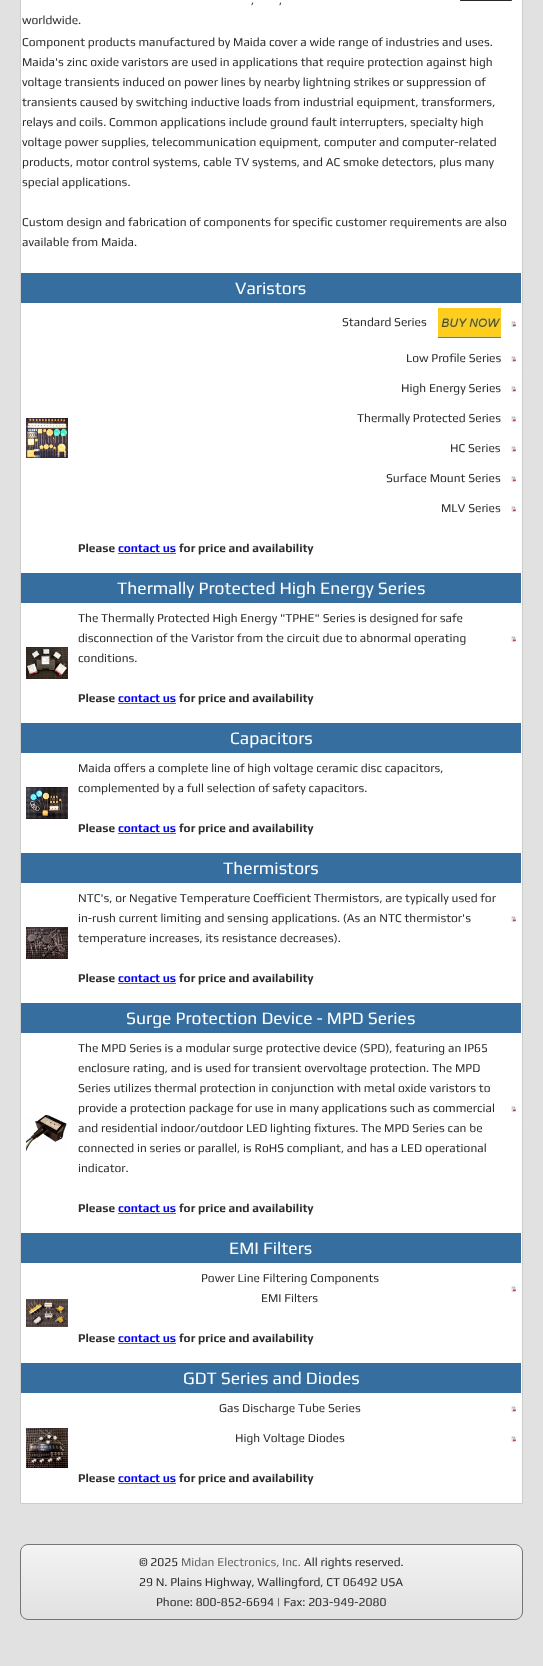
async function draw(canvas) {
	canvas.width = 543;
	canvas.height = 1666;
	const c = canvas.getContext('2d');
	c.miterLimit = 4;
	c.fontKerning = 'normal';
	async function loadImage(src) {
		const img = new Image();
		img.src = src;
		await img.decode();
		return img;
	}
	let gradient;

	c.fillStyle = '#e1e1e1';
	c.fillRect(0, 0, 543, 1666);
	c.fillStyle = '#fff';
	c.beginPath();
	c.rect(20.5, -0.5, 502, 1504);
	c.fill();
	c.strokeStyle = '#ccc';
	c.stroke();
	c.drawImage(await loadImage('img1.png'), 460, 0, 53, 1);
	c.font = '12px Play';
	c.fillStyle = '#2d2d2d';
	for (const [text, x, y] of [
		[',', 251, 4],
		[',', 279, 4],
		['worldwide.', 22, 24],
		['Component products manufactured by Maida cover a wide range of industries and uses.', 22, 46],
		['Maida\'s zinc oxide varistors are used in applications that require protection against high', 22, 66],
		['voltage transients induced on power lines by nearby lightning strikes or suppression of', 22, 86],
		['transients caused by switching inductive loads from industrial equipment, transformers,', 22, 106],
		['relays and coils. Common applications include ground fault interrupters, specialty high', 22, 126],
		['voltage power supplies, telecommunication equipment, computer and computer-related', 22, 146],
		['products, motor control systems, cable TV systems, and AC smoke detectors, plus many', 22, 166],
		['special applications.', 22, 186],
		['Custom design and fabrication of components for specific customer requirements are also', 22, 226],
		['available from Maida.', 22, 246],
	]) {
		c.fillText(text, x, y);
	}
	c.fillStyle = '#366f9f';
	c.fillRect(21, 273, 500, 30);
	c.font = '17.5px Play';
	c.fillStyle = '#fff';
	c.fillText('Varistors', 235, 294);
	c.font = '12px Play';
	c.fillStyle = '#2d2d2d';
	c.fillText('Standard Series', 342, 326);
	c.drawImage(await loadImage('img2.png'), 438, 308, 63, 30);
	c.drawImage(await loadImage('img3.png'), 511, 321, 5, 6);
	c.drawImage(await loadImage('img4.png'), 26, 418, 42, 40);
	c.fillText('Low Profile Series', 406, 362);
	c.drawImage(await loadImage('img3.png'), 511, 356, 5, 6);
	c.fillText('High Energy Series', 401, 392);
	c.drawImage(await loadImage('img3.png'), 511, 386, 5, 6);
	c.fillText('Thermally Protected Series', 357, 422);
	c.drawImage(await loadImage('img3.png'), 511, 416, 5, 6);
	c.fillText('HC Series', 450, 452);
	c.drawImage(await loadImage('img3.png'), 511, 446, 5, 6);
	c.fillText('Surface Mount Series', 386, 482);
	c.drawImage(await loadImage('img3.png'), 511, 476, 5, 6);
	c.fillText('MLV Series', 441, 512);
	c.drawImage(await loadImage('img3.png'), 511, 506, 5, 6);
	c.font = 'bold 11.9px Play';
	c.fillText('Please', 78, 552);
	c.fillStyle = '#00f';
	c.fillText('contact us', 118, 552);
	c.fillStyle = '#666';
	c.fillRect(118, 553, 58, 1);
	c.fillStyle = '#2d2d2d';
	c.fillText('for price and availability', 179, 552);
	c.fillStyle = '#366f9f';
	c.fillRect(21, 573, 500, 30);
	c.font = '17.5px Play';
	c.fillStyle = '#fff';
	c.fillText('Thermally Protected High Energy Series', 117, 594);
	c.font = '12px Play';
	c.fillStyle = '#2d2d2d';
	for (const [text, x, y] of [
		['The Thermally Protected High Energy "TPHE" Series is designed for safe', 78, 622],
		['disconnection of the Varistor from the circuit due to abnormal operating', 78, 642],
		['conditions.', 78, 662],
	]) {
		c.fillText(text, x, y);
	}
	c.drawImage(await loadImage('img3.png'), 511, 636, 5, 6);
	c.drawImage(await loadImage('img5.png'), 26, 647, 42, 32);
	c.font = 'bold 11.9px Play';
	c.fillText('Please', 78, 702);
	c.fillStyle = '#00f';
	c.fillText('contact us', 118, 702);
	c.fillStyle = '#666';
	c.fillRect(118, 703, 58, 1);
	c.fillStyle = '#2d2d2d';
	c.fillText('for price and availability', 179, 702);
	c.fillStyle = '#366f9f';
	c.fillRect(21, 723, 500, 30);
	c.font = '17.5px Play';
	c.fillStyle = '#fff';
	c.fillText('Capacitors', 230, 744);
	c.font = '12px Play';
	c.fillStyle = '#2d2d2d';
	c.fillText('Maida offers a complete line of high voltage ceramic disc capacitors,', 78, 772);
	c.fillText('complemented by a full selection of safety capacitors.', 78, 792);
	c.drawImage(await loadImage('img6.png'), 26, 787, 42, 32);
	c.font = 'bold 11.9px Play';
	c.fillText('Please', 78, 832);
	c.fillStyle = '#00f';
	c.fillText('contact us', 118, 832);
	c.fillStyle = '#666';
	c.fillRect(118, 833, 58, 1);
	c.fillStyle = '#2d2d2d';
	c.fillText('for price and availability', 179, 832);
	c.fillStyle = '#366f9f';
	c.fillRect(21, 853, 500, 30);
	c.font = '17.5px Play';
	c.fillStyle = '#fff';
	c.fillText('Thermistors', 223, 874);
	c.font = '12px Play';
	c.fillStyle = '#2d2d2d';
	for (const [text, x, y] of [
		['NTC\'s, or Negative Temperature Coefficient Thermistors, are typically used for', 78, 902],
		['in-rush current limiting and sensing applications. (As an NTC thermistor\'s', 78, 922],
		['temperature increases, its resistance decreases).', 78, 942],
	]) {
		c.fillText(text, x, y);
	}
	c.drawImage(await loadImage('img3.png'), 511, 916, 5, 6);
	c.drawImage(await loadImage('img7.png'), 26, 927, 42, 32);
	c.font = 'bold 11.9px Play';
	c.fillText('Please', 78, 982);
	c.fillStyle = '#00f';
	c.fillText('contact us', 118, 982);
	c.fillStyle = '#666';
	c.fillRect(118, 983, 58, 1);
	c.fillStyle = '#2d2d2d';
	c.fillText('for price and availability', 179, 982);
	c.fillStyle = '#366f9f';
	c.fillRect(21, 1003, 500, 30);
	c.font = '17.5px Play';
	c.fillStyle = '#fff';
	c.fillText('Surge Protection Device - MPD Series', 126, 1024);
	c.font = '12px Play';
	c.fillStyle = '#2d2d2d';
	for (const [text, x, y] of [
		['The MPD Series is a modular surge protective device (SPD), featuring an IP65', 78, 1052],
		['enclosure rating, and is used for transient overvoltage protection. The MPD', 78, 1072],
		['Series utilizes thermal protection in conjunction with metal oxide varistors to', 78, 1092],
		['provide a protection package for use in many applications such as commercial', 78, 1112],
		['and residential indoor/outdoor LED lighting fixtures. The MPD Series can be', 78, 1132],
		['connected in series or parallel, is RoHS compliant, and has a LED operational', 78, 1152],
		['indicator.', 78, 1172],
	]) {
		c.fillText(text, x, y);
	}
	c.drawImage(await loadImage('img3.png'), 511, 1106, 5, 6);
	c.drawImage(await loadImage('img8.png'), 26, 1115, 41, 36);
	c.font = 'bold 11.9px Play';
	c.fillText('Please', 78, 1212);
	c.fillStyle = '#00f';
	c.fillText('contact us', 118, 1212);
	c.fillStyle = '#666';
	c.fillRect(118, 1213, 58, 1);
	c.fillStyle = '#2d2d2d';
	c.fillText('for price and availability', 179, 1212);
	c.fillStyle = '#366f9f';
	c.fillRect(21, 1233, 500, 30);
	c.font = '17.5px Play';
	c.fillStyle = '#fff';
	c.fillText('EMI Filters', 229, 1254);
	c.font = '12px Play';
	c.fillStyle = '#2d2d2d';
	c.fillText('Power Line Filtering Components', 201, 1282);
	c.fillText('EMI Filters', 261, 1302);
	c.drawImage(await loadImage('img3.png'), 511, 1286, 5, 6);
	c.drawImage(await loadImage('img9.png'), 26, 1299, 42, 28);
	c.font = 'bold 11.9px Play';
	c.fillText('Please', 78, 1342);
	c.fillStyle = '#00f';
	c.fillText('contact us', 118, 1342);
	c.fillStyle = '#666';
	c.fillRect(118, 1343, 58, 1);
	c.fillStyle = '#2d2d2d';
	c.fillText('for price and availability', 179, 1342);
	c.fillStyle = '#366f9f';
	c.fillRect(21, 1363, 500, 30);
	c.font = '17.5px Play';
	c.fillStyle = '#fff';
	c.fillText('GDT Series and Diodes', 183, 1384);
	c.font = '12px Play';
	c.fillStyle = '#2d2d2d';
	c.fillText('Gas Discharge Tube Series', 219, 1412);
	c.drawImage(await loadImage('img3.png'), 511, 1406, 5, 6);
	c.drawImage(await loadImage('img10.png'), 26, 1428, 42, 40);
	c.fillText('High Voltage Diodes', 235, 1442);
	c.drawImage(await loadImage('img3.png'), 511, 1436, 5, 6);
	c.font = 'bold 11.9px Play';
	c.fillText('Please', 78, 1482);
	c.fillStyle = '#00f';
	c.fillText('contact us', 118, 1482);
	c.fillStyle = '#666';
	c.fillRect(118, 1483, 58, 1);
	c.fillStyle = '#2d2d2d';
	c.fillText('for price and availability', 179, 1482);
	c.save();
	c.beginPath();
	c.roundRect(20, 1544, 503, 76, 8);
	c.clip();
	gradient = c.createLinearGradient(272, 1545, 272, 1619);
	gradient.addColorStop(0, '#f3f3f3');
	gradient.addColorStop(1, '#e1e1e1');
	c.fillStyle = gradient;
	c.fillRect(20, 1545, 503, 74);
	c.restore();
	c.beginPath();
	c.roundRect(20.5, 1544.5, 502, 75, 7.5);
	c.strokeStyle = '#757575';
	c.stroke();
	c.font = '12px Play';
	c.fillText('© 2025', 139, 1566);
	c.fillStyle = '#666';
	c.fillText('Midan Electronics, Inc.', 181, 1566);
	c.fillStyle = '#2d2d2d';
	for (const [text, x, y] of [
		['All rights reserved.', 304, 1566],
		['29 N. Plains Highway, Wallingford, CT 06492 USA', 139, 1586],
		['Phone: 800-852-6694 | Fax: 203-949-2080', 156, 1606],
	]) {
		c.fillText(text, x, y);
	}
}

draw(document.querySelector('canvas'));
